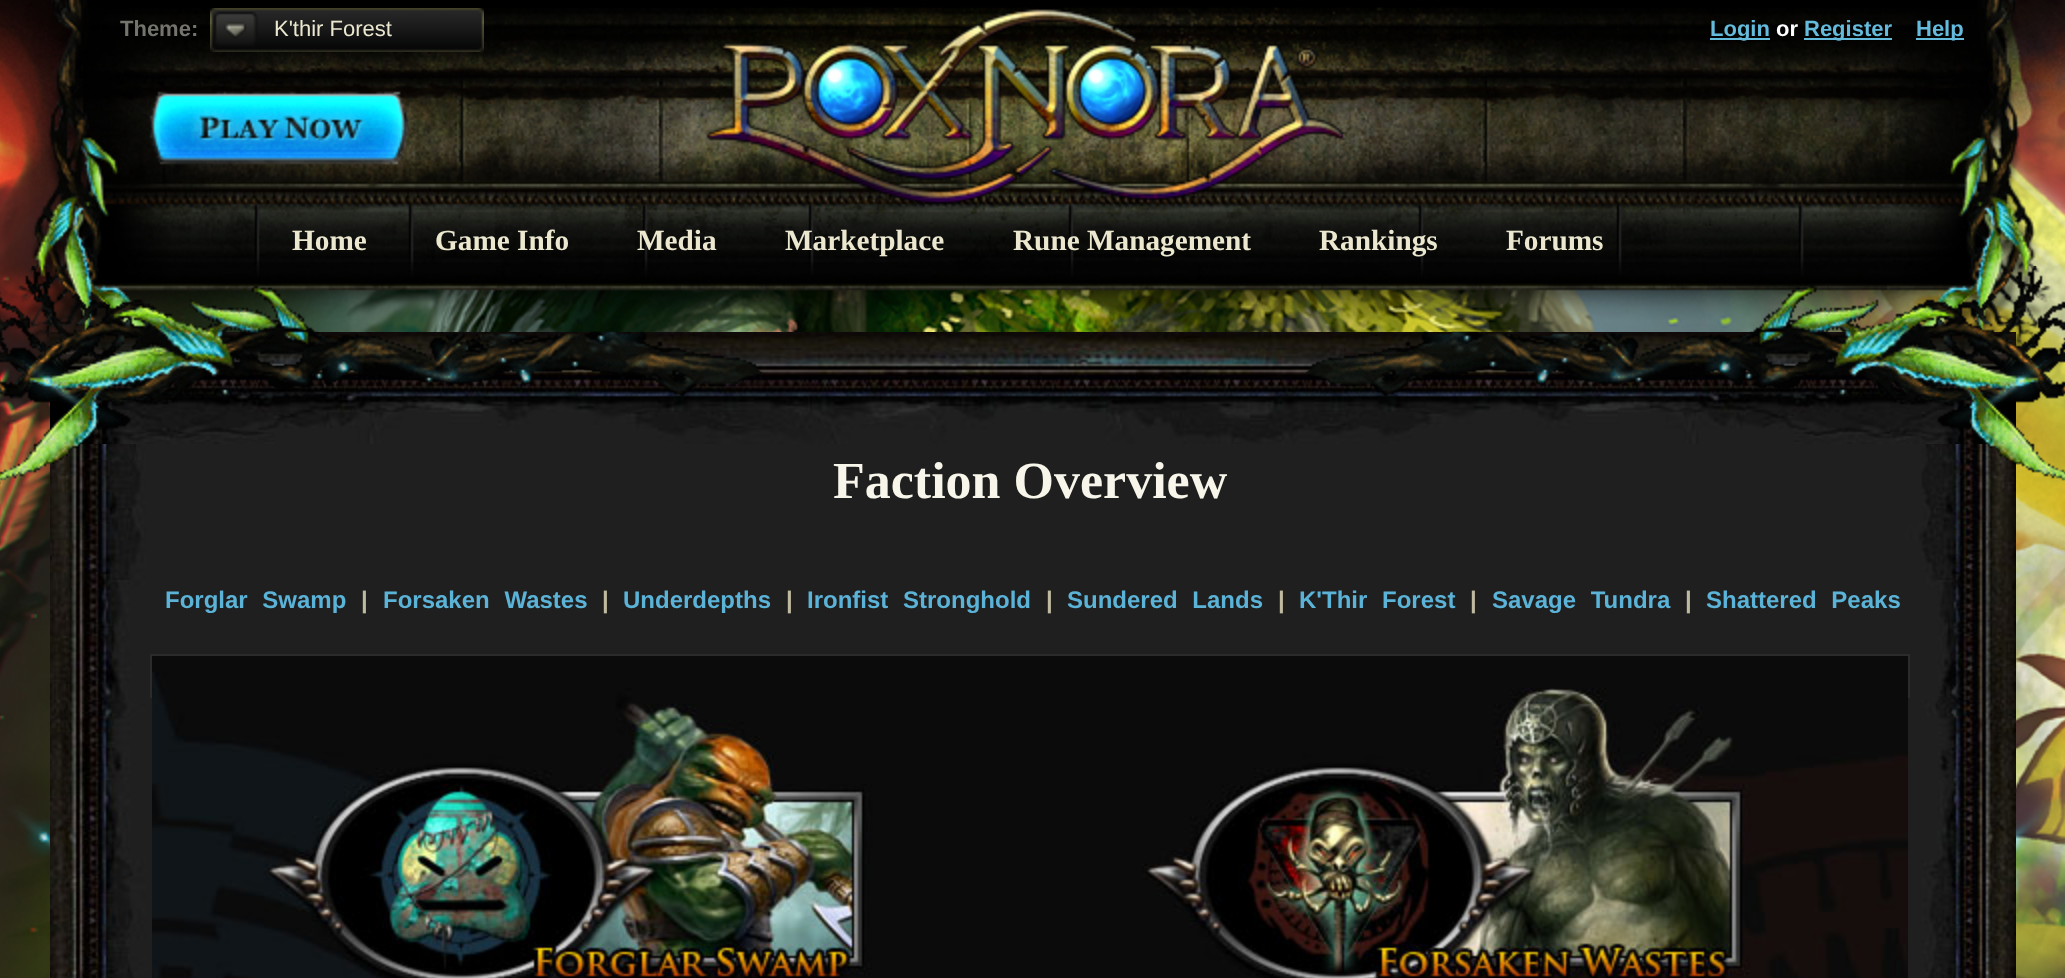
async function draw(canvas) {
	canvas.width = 2065;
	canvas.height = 978;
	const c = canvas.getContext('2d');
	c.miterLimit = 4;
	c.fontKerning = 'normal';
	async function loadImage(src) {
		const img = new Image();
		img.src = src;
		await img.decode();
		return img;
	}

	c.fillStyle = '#fff';
	c.fillRect(0, 0, 2065, 978);
	c.drawImage(await loadImage('img1.png'), 0, 0, 2065, 978);
	c.font = 'bold 22px Liberation Sans';
	c.fillStyle = '#74736c';
	c.fillText('Theme:', 120, 36);
	c.drawImage(await loadImage('img2.png'), 210, 8, 274, 44);
	c.font = '22px Liberation Sans';
	c.fillStyle = '#ece8d0';
	c.fillText('K\'thir Forest', 274, 36);
	c.fillStyle = '#64bbdc';
	c.fillRect(1710, 38, 60, 2);
	c.font = 'bold 22px Liberation Sans';
	c.fillText('Login', 1710, 36);
	c.fillStyle = '#fff';
	c.fillText('or', 1776, 36);
	c.fillStyle = '#64bbdc';
	c.fillRect(1804, 38, 88, 2);
	c.fillText('Register', 1804, 36);
	c.fillRect(1916, 38, 48, 2);
	c.fillText('Help', 1916, 36);
	c.drawImage(await loadImage('img3.png'), 149, 91, 260, 74);
	c.font = 'bold 29.25px Liberation Serif';
	c.fillStyle = '#ece8d0';
	for (const [text, x, y] of [
		['Home', 292, 250],
		['Game Info', 435, 250],
		['Media', 637, 250],
		['Marketplace', 785, 250],
		['Rune Management', 1013, 250],
		['Rankings', 1319, 250],
		['Forums', 1506, 250],
	]) {
		c.fillText(text, x, y);
	}
	c.drawImage(await loadImage('img4.png'), 50, 332, 1966, 112);
	c.drawImage(await loadImage('img5.png'), 50, 444, 1966, 534);
	c.drawImage(await loadImage('img6.png'), 0, 266, 763, 219);
	c.drawImage(await loadImage('img7.png'), 1305, 266, 760, 215);
	c.font = 'bold 52px Liberation Serif';
	c.fillStyle = '#f8f6ea';
	c.fillText('Faction Overview', 833, 498);
	c.wordSpacing = '8px';
	c.font = 'bold 24px Liberation Sans';
	c.fillStyle = '#5bb3d8';
	c.fillText('Forglar Swamp', 165, 608);
	c.wordSpacing = '0px';
	c.fillStyle = '#beba9f';
	c.fillText('|', 361, 608);
	c.wordSpacing = '8px';
	c.fillStyle = '#5bb3d8';
	c.fillText('Forsaken Wastes', 383, 608);
	c.wordSpacing = '0px';
	c.fillStyle = '#beba9f';
	c.fillText('|', 602, 608);
	c.fillStyle = '#5bb3d8';
	c.fillText('Underdepths', 623, 608);
	c.fillStyle = '#beba9f';
	c.fillText('|', 786, 608);
	c.wordSpacing = '8px';
	c.fillStyle = '#5bb3d8';
	c.fillText('Ironfist Stronghold', 807, 608);
	c.wordSpacing = '0px';
	c.fillStyle = '#beba9f';
	c.fillText('|', 1046, 608);
	c.wordSpacing = '8px';
	c.fillStyle = '#5bb3d8';
	c.fillText('Sundered Lands', 1067, 608);
	c.wordSpacing = '0px';
	c.fillStyle = '#beba9f';
	c.fillText('|', 1278, 608);
	c.wordSpacing = '8px';
	c.fillStyle = '#5bb3d8';
	c.fillText('K\'Thir Forest', 1299, 608);
	c.wordSpacing = '0px';
	c.fillStyle = '#beba9f';
	c.fillText('|', 1470, 608);
	c.wordSpacing = '8px';
	c.fillStyle = '#5bb3d8';
	c.fillText('Savage Tundra', 1492, 608);
	c.wordSpacing = '0px';
	c.fillStyle = '#beba9f';
	c.fillText('|', 1685, 608);
	c.wordSpacing = '8px';
	c.fillStyle = '#5bb3d8';
	c.fillText('Shattered Peaks', 1706, 608);
	c.fillStyle = '#0b0b0b';
	c.fillRect(152, 656, 1756, 32);
	c.strokeStyle = '#2b2b2b';
	c.lineWidth = 2;
	c.strokeRect(151, 655, 1758, 42);
	c.drawImage(await loadImage('img8.png'), 152, 672, 878, 306);
	c.drawImage(await loadImage('img9.png'), 1030, 688, 878, 290);
}

draw(document.querySelector('canvas'));
